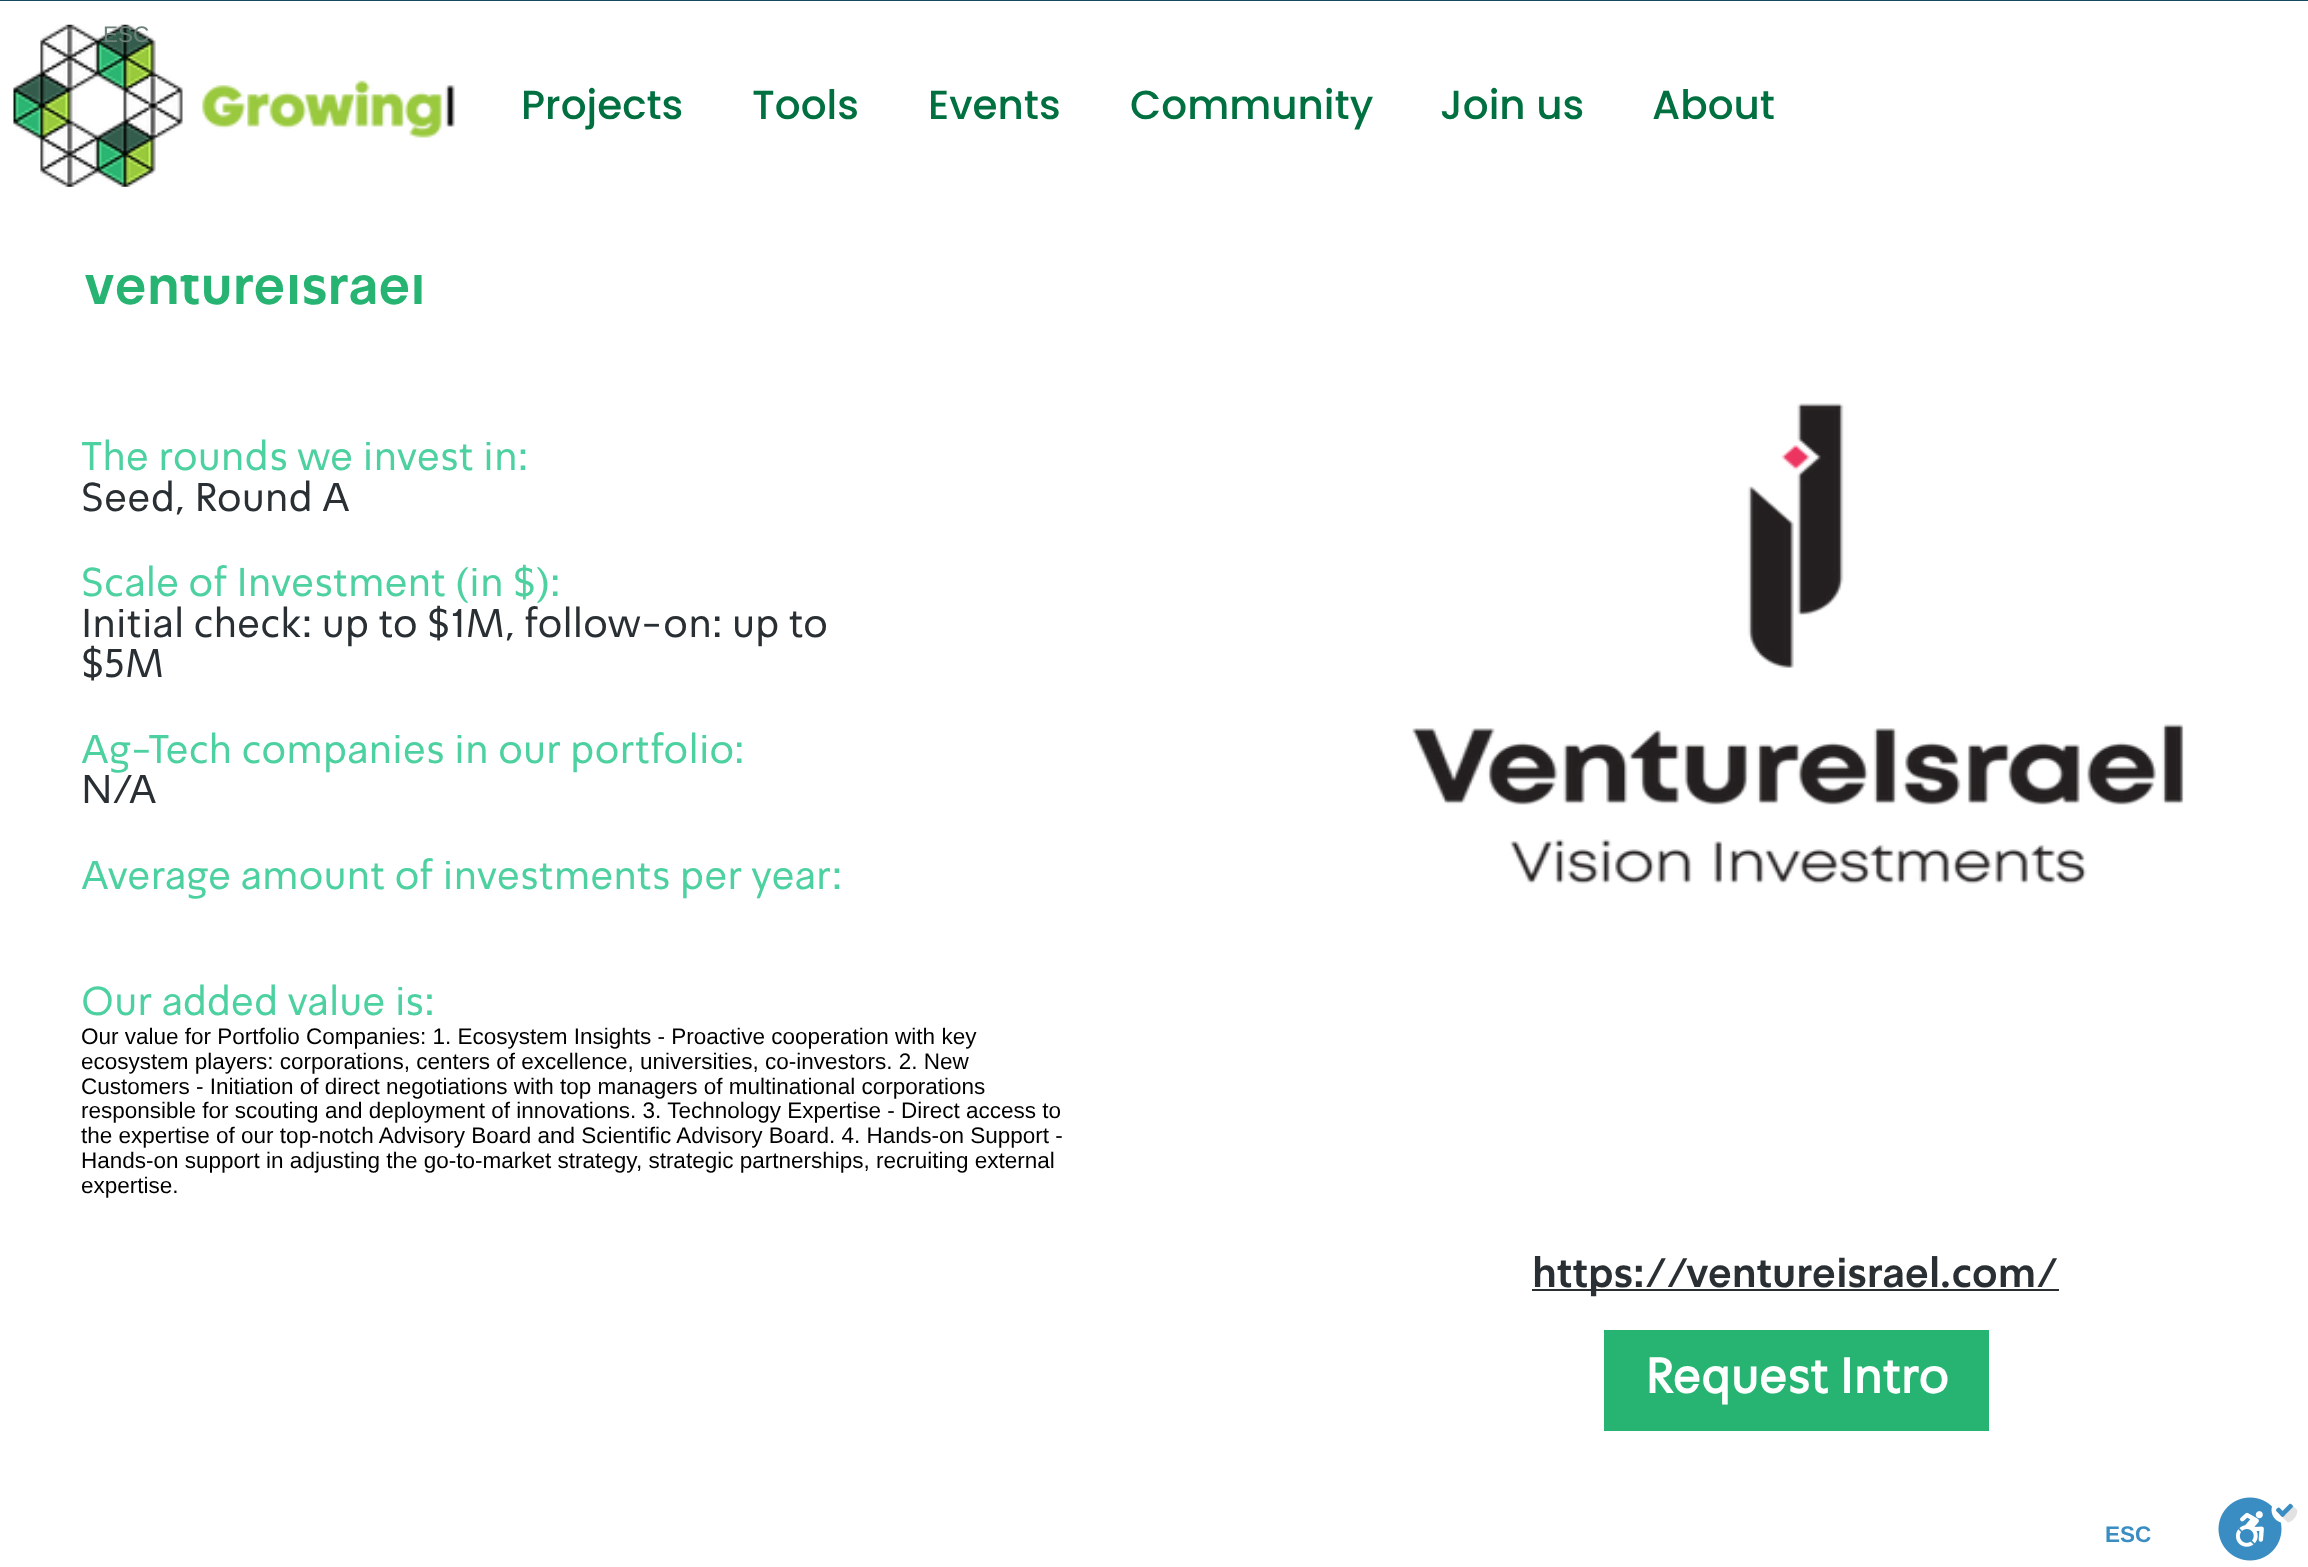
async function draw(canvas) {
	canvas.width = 2308;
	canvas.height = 1567;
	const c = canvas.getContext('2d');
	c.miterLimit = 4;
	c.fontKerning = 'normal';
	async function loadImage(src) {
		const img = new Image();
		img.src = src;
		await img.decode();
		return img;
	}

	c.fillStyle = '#fff';
	c.fillRect(0, 0, 2308, 1567);
	c.fillStyle = '#15495f';
	c.fillRect(0, 0, 2308, 1);
	c.drawImage(await loadImage('img2.png'), 13, 24, 442, 163);
	c.font = '22.5px Liberation Sans';
	c.fillStyle = '#6e827a';
	c.fillText('ESC', 103, 42);
	c.font = 'bold 22.5px Liberation Sans';
	c.fillStyle = '#3a8dc2';
	c.fillText('ESC', 2105, 1542);
	c.drawImage(await loadImage('img1.png'), 2218, 1497, 80, 64);
	c.font = 'bold 54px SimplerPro';
	c.fillStyle = '#27b472';
	c.fillText('VentureIsrael', 81, 304);
	c.fillStyle = '#fff';
	c.fillRect(82, 262, 340, 13);
	c.font = '500 40.5px Poppins';
	c.fillStyle = '#007040';
	for (const [text, x, y] of [
		['Projects', 521, 119],
		['Tools', 752, 119],
		['Events', 928, 119],
		['Community', 1130, 119],
		['Join us', 1440, 119],
		['About', 1652, 119],
	]) {
		c.fillText(text, x, y);
	}
	c.font = '40.5px SimplerPro';
	c.fillStyle = '#4dd1a0';
	c.fillText('The rounds we invest in:', 81, 470);
	c.drawImage(await loadImage('img3.png'), 1412, 403, 772, 481);
	c.fillStyle = '#292f33';
	c.fillText('Seed, Round A', 81, 511);
	c.fillStyle = '#4dd1a0';
	c.fillText('Scale of Investment (in $):', 81, 596);
	c.fillStyle = '#292f33';
	c.fillText('Initial check: up to $1M, follow-on: up to', 81, 637);
	c.fillText('$5M', 81, 677);
	c.fillStyle = '#4dd1a0';
	c.fillText('Ag-Tech companies in our portfolio:', 81, 763);
	c.fillStyle = '#292f33';
	c.fillText('N/A', 81, 803);
	c.fillStyle = '#4dd1a0';
	c.fillText('Average amount of investments per year:', 81, 889);
	c.fillText('Our added value is:', 81, 1015);
	c.font = '22.5px Liberation Sans';
	c.fillStyle = '#000';
	for (const [text, x, y] of [
		['Our value for Portfolio Companies: 1. Ecosystem Insights - Proactive cooperation with key', 81, 1044],
		['ecosystem players: corporations, centers of excellence, universities, co-investors. 2. New', 81, 1069],
		['Customers - Initiation of direct negotiations with top managers of multinational corporations', 81, 1094],
		['responsible for scouting and deployment of innovations. 3. Technology Expertise - Direct access to', 81, 1118],
		['the expertise of our top-notch Advisory Board and Scientific Advisory Board. 4. Hands-on Support -', 81, 1143],
		['Hands-on support in adjusting the go-to-market strategy, strategic partnerships, recruiting external', 81, 1168],
		['expertise.', 81, 1193],
	]) {
		c.fillText(text, x, y);
	}
	c.fillStyle = '#292f33';
	c.fillRect(1532, 1289, 527, 2);
	c.font = 'bold 40.5px SimplerPro';
	c.fillText('https://ventureisrael.com/', 1532, 1287);
	c.fillStyle = '#27b472';
	c.fillRect(1604, 1330, 385, 101);
	c.font = 'bold 49.5px "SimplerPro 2"';
	c.fillStyle = '#fff';
	c.fillText('Request Intro', 1645, 1393);
}

draw(document.querySelector('canvas'));
